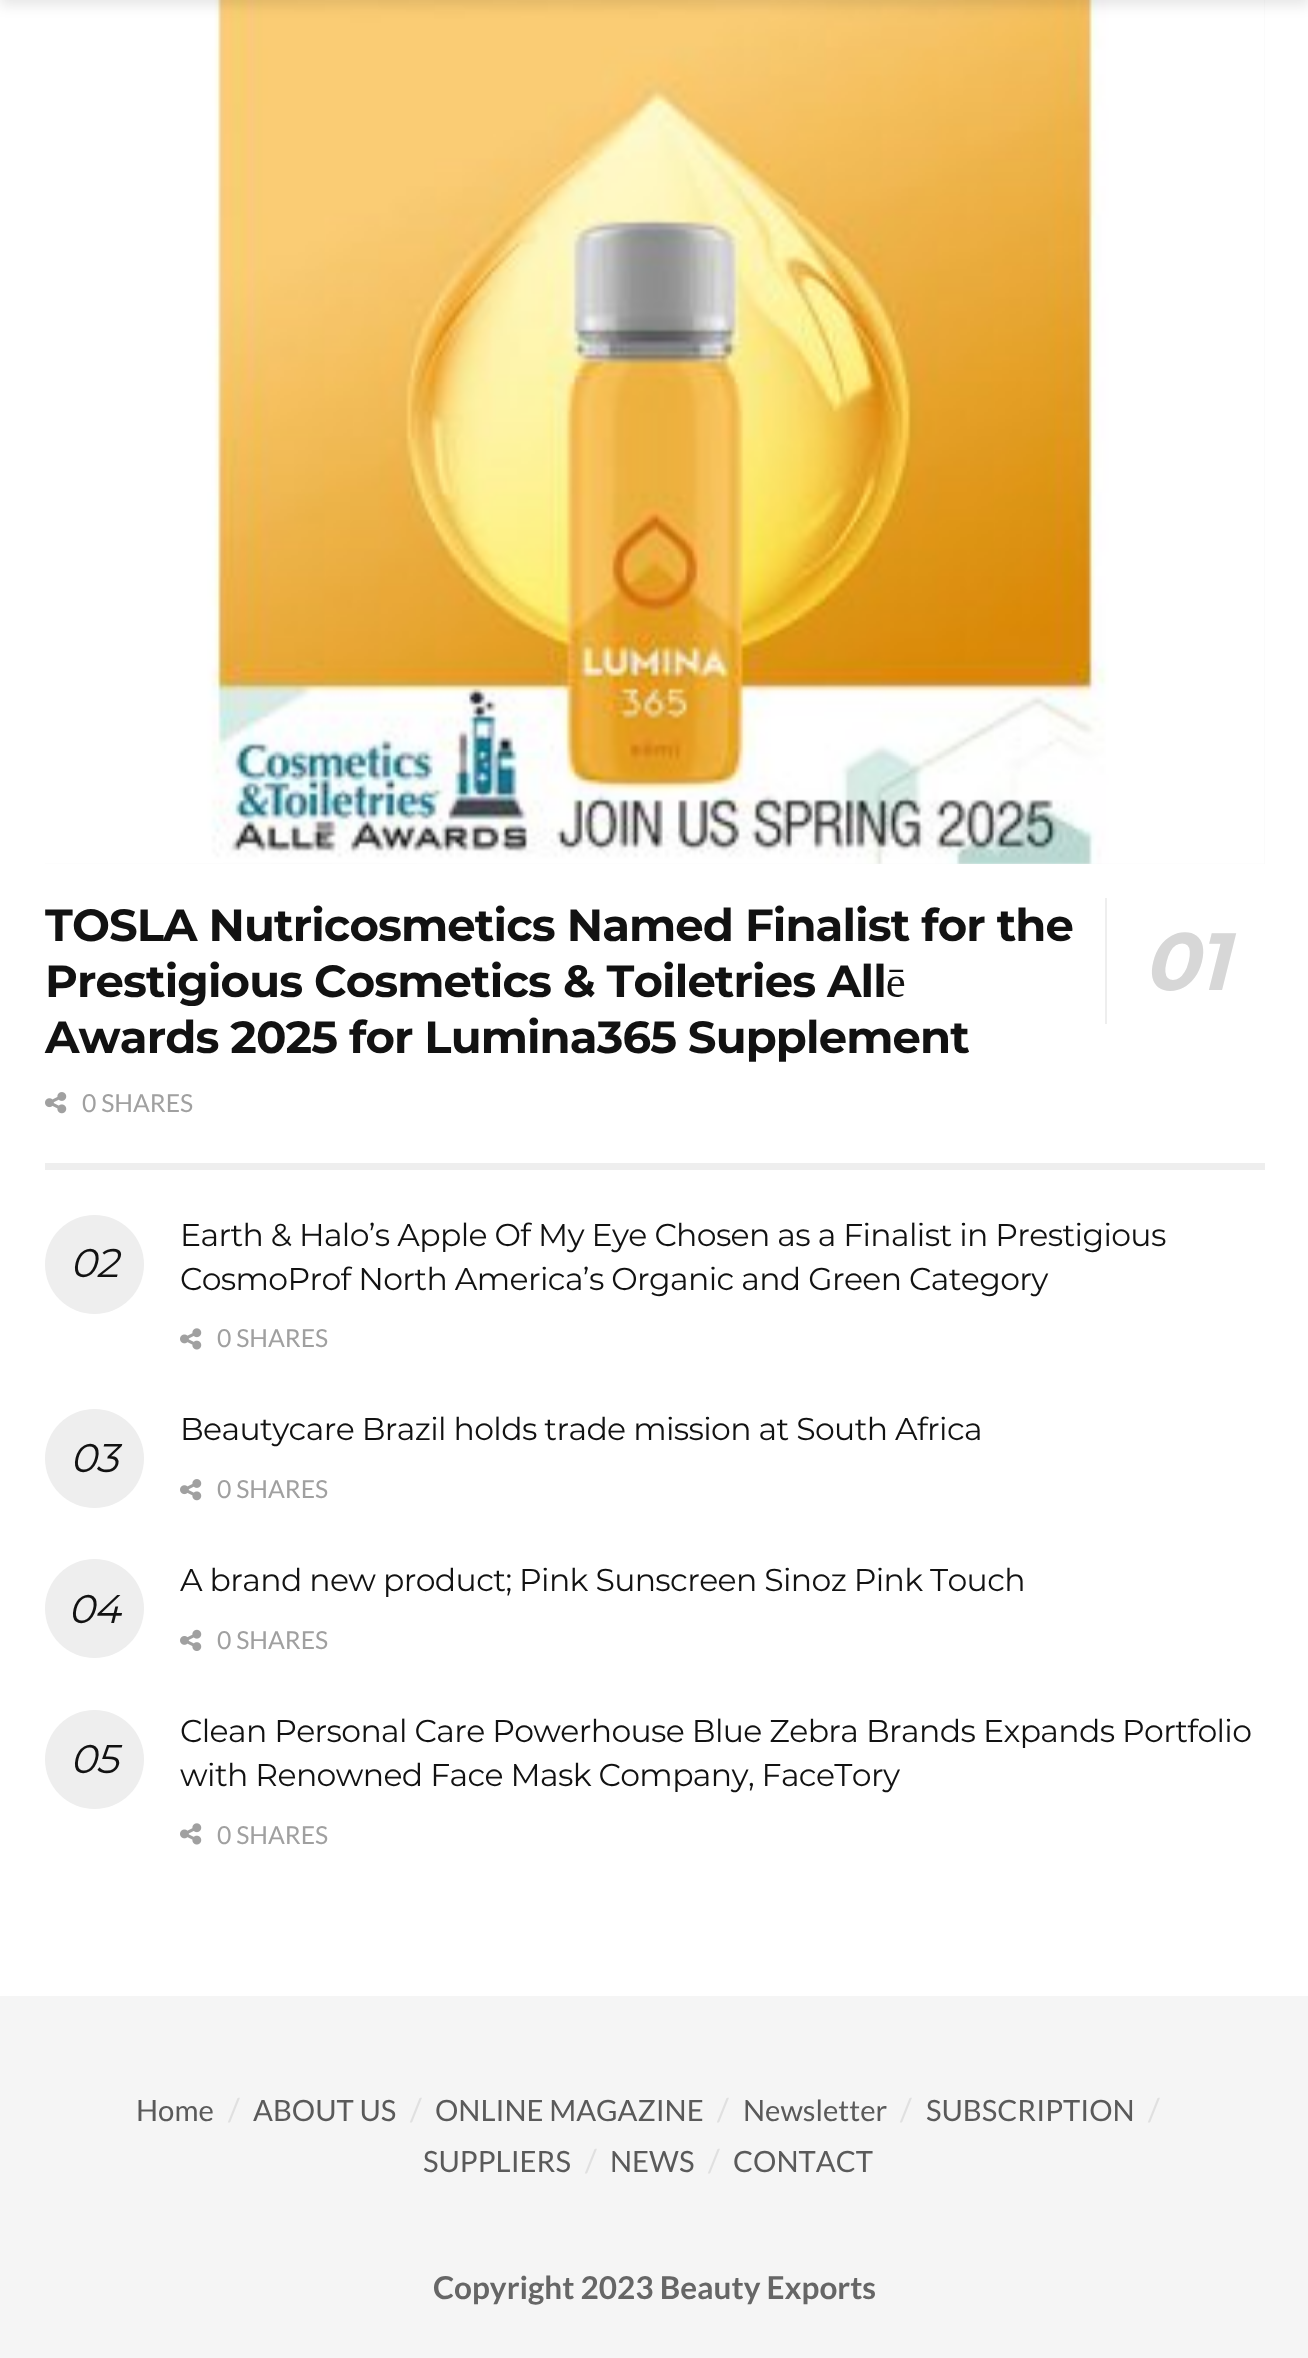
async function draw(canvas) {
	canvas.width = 1308;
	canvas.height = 2358;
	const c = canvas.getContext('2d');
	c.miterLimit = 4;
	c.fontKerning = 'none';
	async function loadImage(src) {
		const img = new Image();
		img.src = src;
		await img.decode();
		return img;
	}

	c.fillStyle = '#fff';
	c.fillRect(0, 0, 1308, 2358);
	c.fillStyle = '#f7f7f7';
	c.fillRect(45, 0, 1220, 864);
	c.drawImage(await loadImage('img2.png'), 180, 862, 243, 2);
	c.drawImage(await loadImage('img1.png'), 45, 0, 1220, 864);
	c.fillStyle = '#0000001a';
	c.filter = 'blur(7px)';
	c.beginPath();
	c.rect(0, -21, 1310, 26);
	c.fill();
	c.filter = 'none';
	c.fillStyle = '#eee';
	c.fillRect(45, 1163, 1220, 7);
	c.letterSpacing = '-0.9px';
	c.font = '100 45px Montserrat';
	c.fillStyle = '#121212';
	c.fillText('TOSLA Nutricosmetics Named Finalist for the', 45, 941);
	c.fillText('Prestigious Cosmetics & Toiletries Allē', 45, 997);
	c.fillStyle = '#eee';
	c.fillRect(1105, 898, 2, 126);
	c.font = 'italic 100 81px Montserrat';
	c.fillStyle = '#d7d7d7';
	c.fillText('01', 1143, 990);
	c.font = '100 45px Montserrat';
	c.fillStyle = '#121212';
	c.fillText('Awards 2025 for Lumina365 Supplement', 45, 1053);
	c.drawImage(await loadImage('img3.png'), 45, 1092, 22, 22);
	c.letterSpacing = '0px';
	c.font = '24.75px Lato';
	c.fillStyle = '#a0a0a0';
	c.fillText('0 SHARES', 82, 1112);
	c.letterSpacing = '-0.63px';
	c.font = '100 31.5px "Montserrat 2"';
	c.fillStyle = '#121212';
	c.fillText('Earth & Halo’s Apple Of My Eye Chosen as a Finalist in Prestigious', 180, 1246);
	c.fillStyle = '#eee';
	c.beginPath();
	c.arc(94.5, 1264.5, 49.5, 0, 2 * Math.PI);
	c.fill();
	c.font = 'italic 100 40px "Montserrat 2"';
	c.fillStyle = '#121212';
	c.fillText('02', 70, 1277);
	c.font = '100 31.5px "Montserrat 2"';
	c.fillText('CosmoProf North America’s Organic and Green Category', 180, 1290);
	c.drawImage(await loadImage('img4.png'), 180, 1328, 22, 22);
	c.letterSpacing = '0px';
	c.font = '24.75px Lato';
	c.fillStyle = '#a0a0a0';
	c.fillText('0 SHARES', 217, 1347);
	c.letterSpacing = '-0.63px';
	c.font = '100 31.5px "Montserrat 2"';
	c.fillStyle = '#121212';
	c.fillText('Beautycare Brazil holds trade mission at South Africa', 180, 1440);
	c.fillStyle = '#eee';
	c.beginPath();
	c.arc(94.5, 1458.5, 49.5, 0, 2 * Math.PI);
	c.fill();
	c.font = 'italic 100 40px "Montserrat 2"';
	c.fillStyle = '#121212';
	c.fillText('03', 70, 1472);
	c.drawImage(await loadImage('img5.png'), 180, 1479, 22, 22);
	c.letterSpacing = '0px';
	c.font = '24.75px Lato';
	c.fillStyle = '#a0a0a0';
	c.fillText('0 SHARES', 217, 1498);
	c.letterSpacing = '-0.63px';
	c.font = '100 31.5px "Montserrat 2"';
	c.fillStyle = '#121212';
	c.fillText('A brand new product; Pink Sunscreen Sinoz Pink Touch', 180, 1591);
	c.fillStyle = '#eee';
	c.beginPath();
	c.arc(94.5, 1608.5, 49.5, 0, 2 * Math.PI);
	c.fill();
	c.font = 'italic 100 40px "Montserrat 2"';
	c.fillStyle = '#121212';
	c.fillText('04', 68, 1623);
	c.drawImage(await loadImage('img6.png'), 180, 1629, 22, 22);
	c.letterSpacing = '0px';
	c.font = '24.75px Lato';
	c.fillStyle = '#a0a0a0';
	c.fillText('0 SHARES', 217, 1649);
	c.letterSpacing = '-0.63px';
	c.font = '100 31.5px "Montserrat 2"';
	c.fillStyle = '#121212';
	c.fillText('Clean Personal Care Powerhouse Blue Zebra Brands', 180, 1742);
	c.fillText('Expands Portfolio', 983, 1742);
	c.fillStyle = '#eee';
	c.beginPath();
	c.arc(94.5, 1759.5, 49.5, 0, 2 * Math.PI);
	c.fill();
	c.font = 'italic 100 40px "Montserrat 2"';
	c.fillStyle = '#121212';
	c.fillText('05', 70, 1773);
	c.font = '100 31.5px "Montserrat 2"';
	c.fillText('with Renowned Face Mask Company, FaceTory', 180, 1786);
	c.drawImage(await loadImage('img4.png'), 180, 1823, 22, 22);
	c.letterSpacing = '0px';
	c.font = '24.75px Lato';
	c.fillStyle = '#a0a0a0';
	c.fillText('0 SHARES', 217, 1844);
	c.fillStyle = '#f5f5f5';
	c.fillRect(0, 1996, 1308, 362);
	c.font = '29.25px Lato';
	c.fillStyle = '#5a5a5a';
	c.fillText('Home', 136, 2121);
	c.font = '31.5px Lato';
	c.fillStyle = '#e0e0e0';
	c.fillText('/', 228, 2121);
	c.font = '29.25px Lato';
	c.fillStyle = '#5a5a5a';
	c.fillText('ABOUT US', 253, 2121);
	c.font = '31.5px Lato';
	c.fillStyle = '#e0e0e0';
	c.fillText('/', 410, 2121);
	c.font = '29.25px Lato';
	c.fillStyle = '#5a5a5a';
	c.fillText('ONLINE MAGAZINE', 435, 2121);
	c.font = '31.5px Lato';
	c.fillStyle = '#e0e0e0';
	c.fillText('/', 717, 2121);
	c.font = '29.25px Lato';
	c.fillStyle = '#5a5a5a';
	c.fillText('Newsletter', 743, 2121);
	c.font = '31.5px Lato';
	c.fillStyle = '#e0e0e0';
	c.fillText('/', 900, 2121);
	c.font = '29.25px Lato';
	c.fillStyle = '#5a5a5a';
	c.fillText('SUBSCRIPTION', 926, 2121);
	c.font = '31.5px Lato';
	c.fillStyle = '#e0e0e0';
	c.fillText('/', 1148, 2121);
	c.font = '29.25px Lato';
	c.fillStyle = '#5a5a5a';
	c.fillText('SUPPLIERS', 423, 2172);
	c.font = '31.5px Lato';
	c.fillStyle = '#e0e0e0';
	c.fillText('/', 585, 2172);
	c.font = '29.25px Lato';
	c.fillStyle = '#5a5a5a';
	c.fillText('NEWS', 610, 2172);
	c.font = '31.5px Lato';
	c.fillStyle = '#e0e0e0';
	c.fillText('/', 708, 2172);
	c.font = '29.25px Lato';
	c.fillStyle = '#5a5a5a';
	c.fillText('CONTACT', 733, 2172);
	c.font = 'bold 31.5px Lato';
	c.fillStyle = '#666';
	c.fillText('Copyright 2023 Beauty Exports', 433, 2299);
}

draw(document.querySelector('canvas'));
